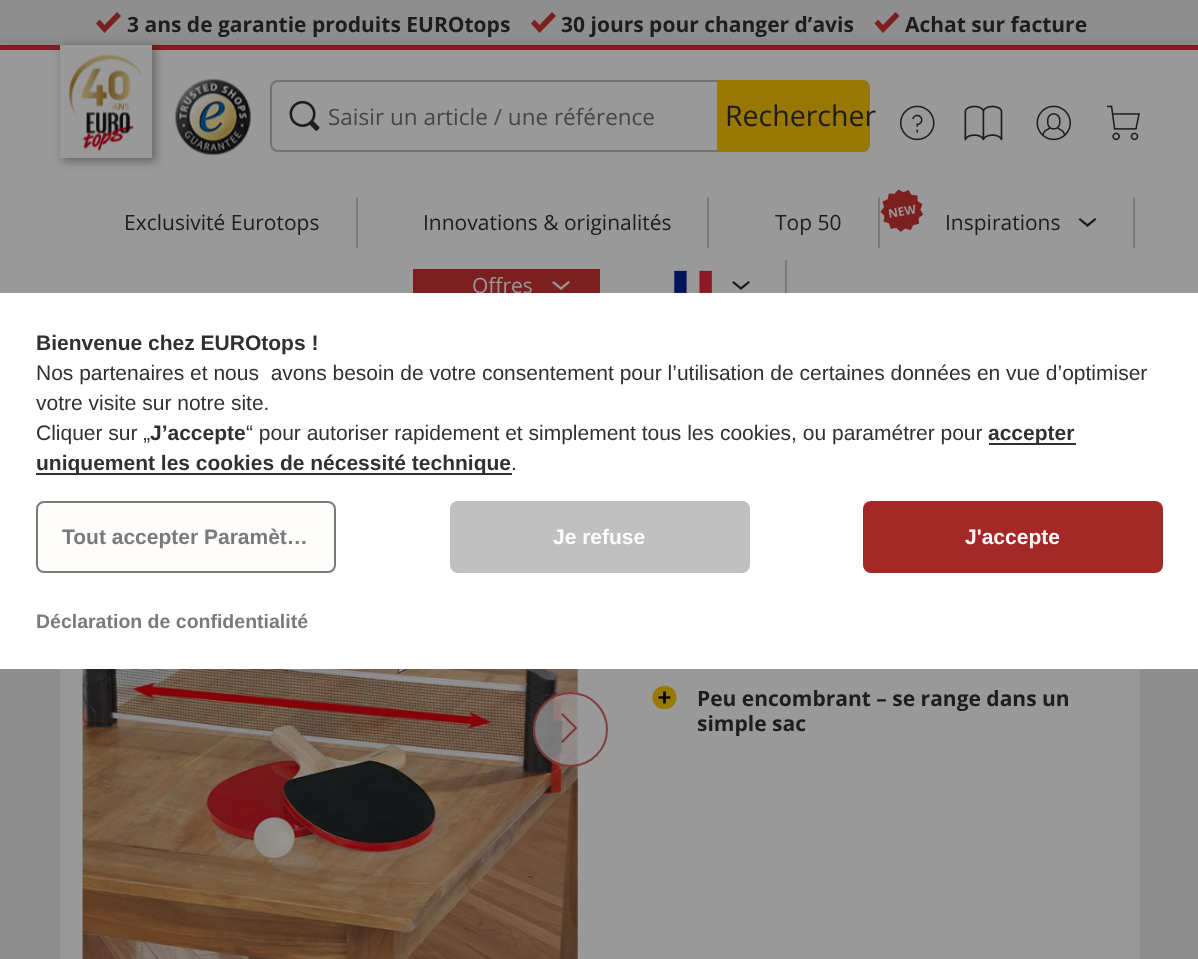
async function draw(canvas) {
	canvas.width = 1198;
	canvas.height = 959;
	const c = canvas.getContext('2d');
	c.miterLimit = 4;
	c.fontKerning = 'normal';
	async function loadImage(src) {
		const img = new Image();
		img.src = src;
		await img.decode();
		return img;
	}

	c.fillStyle = '#8e8e8e';
	c.fillRect(0, 0, 1198, 959);
	c.font = 'bold 21px Open Sans';
	c.fillStyle = '#1d1d1d';
	c.fillText('3 ans de garantie produits EUROtops', 127, 32);
	c.fillStyle = '#7b1f1f';
	c.beginPath();
	c.moveTo(104.5, 25);
	c.lineTo(99.5, 19.5);
	c.lineTo(96, 23.5);
	c.lineTo(104.5, 33);
	c.lineTo(121, 16);
	c.lineTo(117, 12);
	c.closePath();
	c.fill();
	c.fillStyle = '#1d1d1d';
	c.fillText('30 jours pour changer d’avis', 561, 32);
	c.fillStyle = '#7b1f1f';
	c.beginPath();
	c.moveTo(539.5, 25);
	c.lineTo(534.5, 19.5);
	c.lineTo(531, 23.5);
	c.lineTo(539.5, 33);
	c.lineTo(556, 16);
	c.lineTo(552, 12);
	c.closePath();
	c.fill();
	c.fillStyle = '#1d1d1d';
	c.fillText('Achat sur facture', 905, 32);
	c.fillStyle = '#7b1f1f';
	c.beginPath();
	c.moveTo(883, 25);
	c.lineTo(878, 19.5);
	c.lineTo(874.5, 23.5);
	c.lineTo(883, 33);
	c.lineTo(899.5, 16);
	c.lineTo(895.5, 12);
	c.closePath();
	c.fill();
	c.fillStyle = '#0000001f';
	c.filter = 'blur(7.5px)';
	c.beginPath();
	c.rect(0, 48, 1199, 278);
	c.fill();
	c.filter = 'none';
	c.fillStyle = '#999';
	c.fillRect(0, 50, 1198, 243);
	c.fillStyle = '#7b1f1f';
	c.fillRect(0, 45, 1198, 5);
	c.fillStyle = '#0000004d';
	c.filter = 'blur(4px)';
	c.beginPath();
	c.rect(62, 47, 94, 115);
	c.fill();
	c.filter = 'none';
	c.fillStyle = '#999';
	c.fillRect(60, 45, 92, 113);
	c.drawImage(await loadImage('img1.png'), 68, 54, 75, 97);
	c.drawImage(await loadImage('img2.png'), 175, 79, 76, 76);
	c.beginPath();
	c.roundRect(271, 81, 598, 70, 7);
	c.strokeStyle = '#717171';
	c.lineWidth = 2;
	c.stroke();
	c.drawImage(await loadImage('img3.png'), 289, 100, 31, 31);
	c.font = '22.5px Open Sans';
	c.fillStyle = '#464646';
	c.fillText('Saisir un article / une référence', 328, 125);
	c.fillStyle = '#997705';
	c.beginPath();
	c.roundRect(717, 80, 153, 72, [0, 8, 8, 0]);
	c.fill();
	c.font = '28.5px Open Sans';
	c.fillStyle = '#1d1d1d';
	c.fillText('Rechercher', 725, 126);
	c.drawImage(await loadImage('img4.png'), 900, 105, 35, 36);
	c.drawImage(await loadImage('img5.png'), 964, 105, 39, 36);
	c.drawImage(await loadImage('img6.png'), 1036, 105, 35, 36);
	c.drawImage(await loadImage('img7.png'), 1107, 105, 33, 36);
	c.font = '21px Open Sans';
	c.fillText('Exclusivité Eurotops', 124, 230);
	c.fillStyle = '#7a7a7a';
	c.fillRect(356, 197, 2, 51);
	c.fillStyle = '#1d1d1d';
	c.fillText('Innovations & originalités', 423, 230);
	c.fillStyle = '#7a7a7a';
	c.fillRect(707, 197, 2, 51);
	c.fillStyle = '#1d1d1d';
	c.fillText('Top 50', 775, 230);
	c.fillStyle = '#7a7a7a';
	c.fillRect(878, 197, 2, 51);
	c.drawImage(await loadImage('img8.png'), 880, 189, 44, 43);
	c.font = 'bold 12px Open Sans';
	c.fillStyle = '#999';
	c.save();
	c.translate(889, 218);
	c.rotate(-10 * Math.PI / 180);
	c.fillText('NEW', 0, 0);
	c.restore();
	c.fillStyle = '#7a7a7a';
	c.fillRect(1133, 197, 2, 51);
	c.font = '21px Open Sans';
	c.fillStyle = '#1d1d1d';
	c.fillText('Inspirations', 945, 230);
	c.beginPath();
	c.moveTo(1087.5, 227);
	c.lineTo(1078.5, 219.5);
	c.lineTo(1080, 218);
	c.lineTo(1087.5, 224);
	c.lineTo(1095, 218);
	c.lineTo(1096.5, 219.5);
	c.closePath();
	c.fill();
	c.fillStyle = '#7b1f1f';
	c.fillRect(413, 269, 187, 24);
	c.fillStyle = '#999';
	c.fillText('Offres', 472, 293);
	c.beginPath();
	c.moveTo(561, 290);
	c.lineTo(552, 282.5);
	c.lineTo(553.5, 281);
	c.lineTo(561, 287);
	c.lineTo(568.5, 281);
	c.lineTo(570, 282.5);
	c.closePath();
	c.fill();
	c.drawImage(await loadImage('img9.png'), 673, 270, 39, 23);
	c.fillStyle = '#1d1d1d';
	c.beginPath();
	c.moveTo(741, 290);
	c.lineTo(732, 282.5);
	c.lineTo(733.5, 281);
	c.lineTo(741, 287);
	c.lineTo(748.5, 281);
	c.lineTo(750, 282.5);
	c.closePath();
	c.fill();
	c.fillStyle = '#7a7a7a';
	c.fillRect(785, 260, 2, 33);
	c.fillStyle = '#999';
	c.fillRect(60, 669, 1080, 290);
	c.drawImage(await loadImage('img10.png'), 82, 669, 496, 290);
	c.fillStyle = '#999999bf';
	c.beginPath();
	c.arc(570.5, 729.5, 37.5, 0, 2 * Math.PI);
	c.fill();
	c.beginPath();
	c.arc(570.5, 729.5, 36.5, 0, 2 * Math.PI);
	c.strokeStyle = '#7b1f1fbf';
	c.stroke();
	c.fillStyle = '#7b1f1fbf';
	c.beginPath();
	c.moveTo(562.5, 743);
	c.lineTo(561, 741.5);
	c.lineTo(574.5, 728);
	c.lineTo(561, 714.5);
	c.lineTo(562.5, 713);
	c.lineTo(577.5, 728);
	c.closePath();
	c.fill();
	c.fillStyle = '#997a00';
	c.beginPath();
	c.moveTo(676.5, 697.5);
	c.bezierCurveTo(676.5, 681.5, 652.5, 682, 652.5, 697.5);
	c.bezierCurveTo(652.5, 713, 676.5, 713, 676.5, 697.5);
	c.closePath();
	c.fill();
	c.drawImage(await loadImage('img11.png'), 658, 691, 13, 13);
	c.font = 'bold 21px Open Sans';
	c.fillStyle = '#1d1d1d';
	c.fillText('Peu encombrant – se range dans un', 697, 706);
	c.fillText('simple sac', 697, 731);
	c.fillStyle = '#fff';
	c.fillRect(0, 293, 1198, 376);
	c.font = 'bold 21px Liberation Sans';
	c.fillStyle = '#303030';
	c.fillText('Bienvenue chez EUROtops !', 36, 350);
	c.font = '21px Liberation Sans';
	for (const [text, x, y] of [
		['Nos partenaires et nous  avons besoin de votre consentement pour l’utilisation de certaines données en vue d’optimiser', 36, 380],
		['votre visite sur notre site.', 36, 410],
		['Cliquer sur „', 36, 440],
	]) {
		c.fillText(text, x, y);
	}
	c.font = 'bold 21px Liberation Sans';
	c.fillText('J’accepte', 150, 440);
	c.font = '21px Liberation Sans';
	c.fillText('“ pour autoriser rapidement et simplement tous les cookies, ou paramétrer pour', 246, 440);
	c.fillRect(989, 443, 87, 2);
	c.font = 'bold 21px Liberation Sans';
	c.fillText('accepter', 988, 440);
	c.fillRect(36, 473, 476, 2);
	c.fillText('uniquement les cookies de nécessité technique', 36, 470);
	c.font = '21px Liberation Sans';
	c.fillText('.', 511, 470);
	c.fillStyle = '#fffcfc';
	c.beginPath();
	c.roundRect(37, 502, 298, 70, 7);
	c.fill();
	c.strokeStyle = '#7a7a7a';
	c.stroke();
	c.save();
	c.beginPath();
	c.rect(62, 525, 249, 24);
	c.clip();
	c.font = 'bold 21px Liberation Sans';
	c.fillStyle = '#7a7a7a';
	c.fillText('Tout accepter Paramèt…', 62, 544);
	c.restore();
	c.fillStyle = '#c0c0c0';
	c.beginPath();
	c.roundRect(450, 501, 300, 72, 8);
	c.fill();
	c.font = 'bold 21px Liberation Sans';
	c.fillStyle = '#fffcfc';
	c.fillText('Je refuse', 553, 544);
	c.fillStyle = '#a52828';
	c.beginPath();
	c.roundRect(863, 501, 300, 72, 8);
	c.fill();
	c.fillStyle = '#fffcfc';
	c.fillText('J\'accepte', 965, 544);
	c.font = 'bold 19.5px Liberation Sans';
	c.fillStyle = '#7a7a7a';
	c.fillText('Déclaration de confidentialité', 36, 628);
}

draw(document.querySelector('canvas'));
